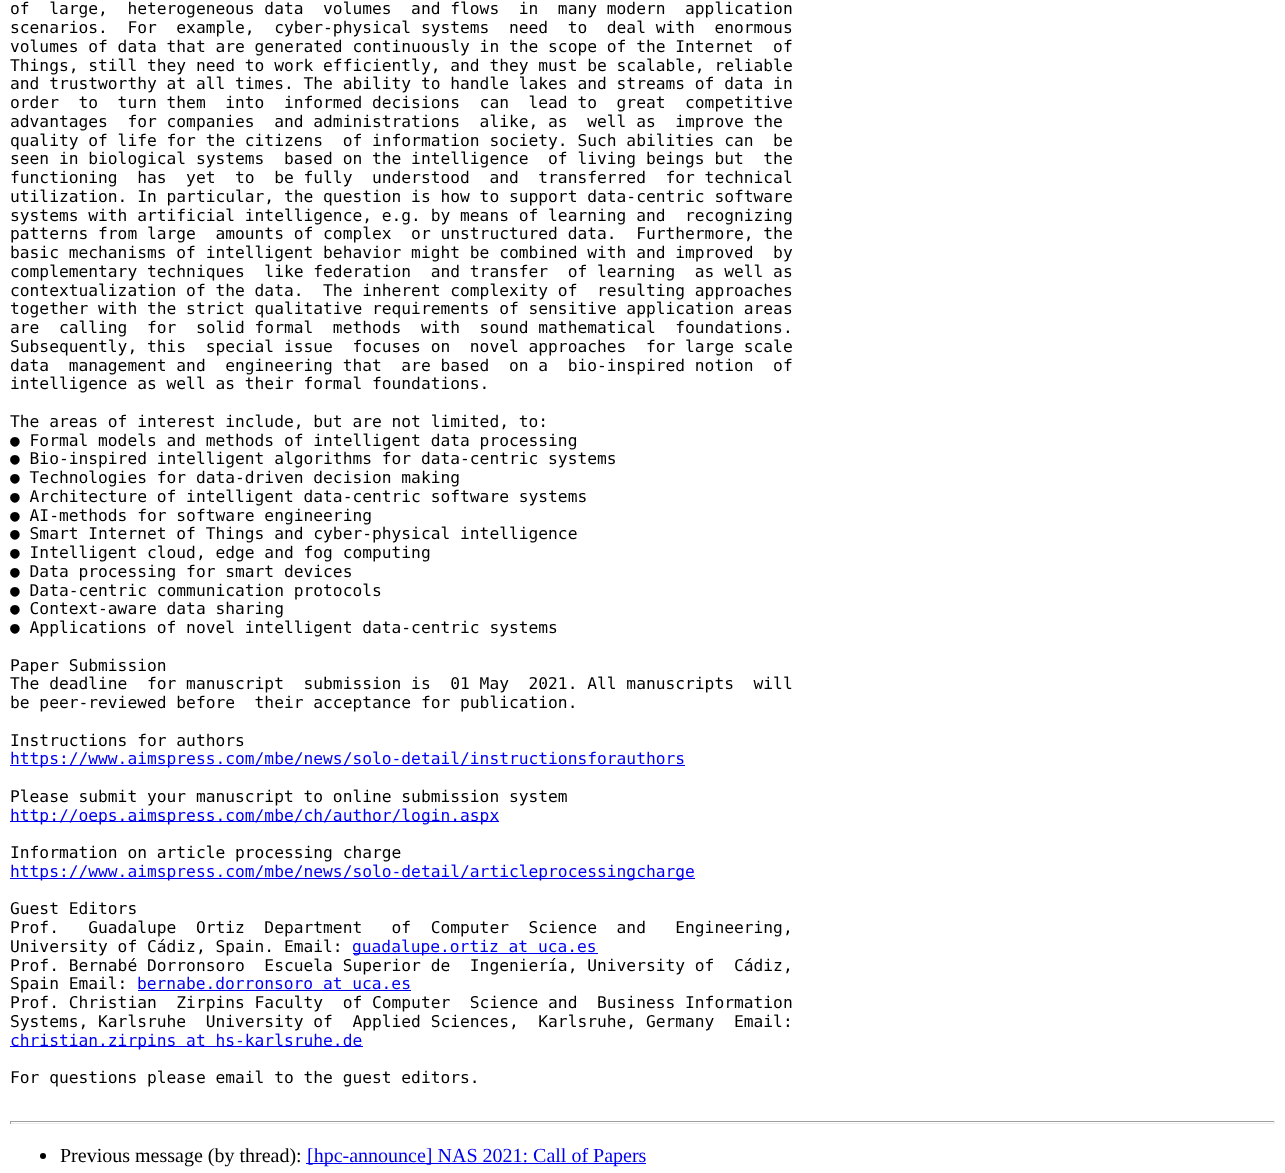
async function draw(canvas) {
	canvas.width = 1285;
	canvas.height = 1173;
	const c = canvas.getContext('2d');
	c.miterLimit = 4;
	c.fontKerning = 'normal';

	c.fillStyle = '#fff';
	c.fillRect(0, 0, 1285, 1173);
	c.font = '16.25px DejaVu Sans Mono';
	c.fillStyle = '#000';
	for (const [text, x, y] of [
		['of  large,  heterogeneous data  volumes  and flows  in  many modern  application', 10, 14],
		['scenarios.  For  example,  cyber-physical systems  need  to  deal with  enormous', 10, 33],
		['volumes of data that are generated continuously in the scope of the Internet  of', 10, 52],
		['Things, still they need to work efficiently, and they must be scalable, reliable', 10, 71],
		['and trustworthy at all times. The ability to handle lakes and streams of data in', 10, 89],
		['order  to  turn them  into  informed decisions  can  lead to  great  competitive', 10, 108],
		['advantages  for companies  and administrations  alike, as  well as  improve the', 10, 127],
		['quality of life for the citizens  of information society. Such abilities can  be', 10, 146],
		['seen in biological systems  based on the intelligence  of living beings but  the', 10, 164],
		['functioning  has  yet  to  be fully  understood  and  transferred  for technical', 10, 183],
		['utilization. In particular, the question is how to support data-centric software', 10, 202],
		['systems with artificial intelligence, e.g. by means of learning and  recognizing', 10, 221],
		['patterns from large  amounts of complex  or unstructured data.  Furthermore, the', 10, 239],
		['basic mechanisms of intelligent behavior might be combined with and improved  by', 10, 258],
		['complementary techniques  like federation  and transfer  of learning  as well as', 10, 277],
		['contextualization of the data.  The inherent complexity of  resulting approaches', 10, 296],
		['together with the strict qualitative requirements of sensitive application areas', 10, 314],
		['are  calling  for  solid formal  methods  with  sound mathematical  foundations.', 10, 333],
		['Subsequently, this  special issue  focuses on  novel approaches  for large scale', 10, 352],
		['data  management and  engineering that  are based  on a  bio-inspired notion  of', 10, 371],
		['intelligence as well as their formal foundations.', 10, 389],
		['The areas of interest include, but are not limited, to:', 10, 427],
		['● Formal models and methods of intelligent data processing', 10, 446],
		['● Bio-inspired intelligent algorithms for data-centric systems', 10, 464],
		['● Technologies for data-driven decision making', 10, 483],
		['● Architecture of intelligent data-centric software systems', 10, 502],
		['● AI-methods for software engineering', 10, 521],
		['● Smart Internet of Things and cyber-physical intelligence', 10, 539],
		['● Intelligent cloud, edge and fog computing', 10, 558],
		['● Data processing for smart devices', 10, 577],
		['● Data-centric communication protocols', 10, 596],
		['● Context-aware data sharing', 10, 614],
		['● Applications of novel intelligent data-centric systems', 10, 633],
		['Paper Submission', 10, 671],
		['The deadline  for manuscript  submission is  01 May  2021. All manuscripts  will', 10, 689],
		['be peer-reviewed before  their acceptance for publication.', 10, 708],
		['Instructions for authors', 10, 746],
	]) {
		c.fillText(text, x, y);
	}
	c.fillStyle = '#00e';
	c.fillRect(10, 765, 675, 1);
	c.fillText('https://www.aimspress.com/mbe/news/solo-detail/instructionsforauthors', 10, 764);
	c.fillStyle = '#000';
	c.fillText('Please submit your manuscript to online submission system', 10, 802);
	c.fillStyle = '#00e';
	c.fillRect(10, 821, 489, 1);
	c.fillText('http://oeps.aimspress.com/mbe/ch/author/login.aspx', 10, 821);
	c.fillStyle = '#000';
	c.fillText('Information on article processing charge', 10, 858);
	c.fillStyle = '#00e';
	c.fillRect(10, 878, 685, 1);
	c.fillText('https://www.aimspress.com/mbe/news/solo-detail/articleprocessingcharge', 10, 877);
	c.fillStyle = '#000';
	for (const [text, x, y] of [
		['Guest Editors', 10, 914],
		['Prof.   Guadalupe  Ortiz  Department   of  Computer  Science  and   Engineering,', 10, 933],
		['University of Cádiz, Spain. Email:', 10, 952],
	]) {
		c.fillText(text, x, y);
	}
	c.fillStyle = '#00e';
	c.fillRect(353, 953, 245, 1);
	c.fillText('guadalupe.ortiz at uca.es', 352, 952);
	c.fillStyle = '#000';
	c.fillText('Prof. Bernabé Dorronsoro  Escuela Superior de  Ingeniería, University of  Cádiz,', 10, 971);
	c.fillText('Spain Email:', 10, 989);
	c.fillStyle = '#00e';
	c.fillText('bernabe.dorronsoro at uca.es', 137, 989);
	c.fillRect(138, 990, 273, 1);
	c.fillStyle = '#000';
	c.fillText('Prof. Christian  Zirpins Faculty  of Computer  Science and  Business Information', 10, 1008);
	c.fillText('Systems, Karlsruhe  University of  Applied Sciences,  Karlsruhe, Germany  Email:', 10, 1027);
	c.fillStyle = '#00e';
	c.fillRect(10, 1046, 353, 1);
	c.fillText('christian.zirpins at hs-karlsruhe.de', 10, 1046);
	c.fillStyle = '#000';
	c.fillText('For questions please email to the guest editors.', 10, 1083);
	for (const [x, y, w, h, color] of [
		[10, 1121, 1265, 1, '#9f9f9f'],
		[1274, 1121, 1, 3, '#eee'],
		[10, 1123, 1265, 1, '#eee'],
		[10, 1121, 1, 3, '#9f9f9f'],
	]) {
		c.fillStyle = color;
		c.fillRect(x, y, w, h);
	}
	c.fillStyle = '#000';
	c.beginPath();
	c.arc(43, 1156, 3, 0, 2 * Math.PI);
	c.fill();
	c.font = '20px Liberation Serif';
	c.fillText('Previous message (by thread):', 60, 1162);
	c.fillStyle = '#00e';
	c.fillRect(306, 1163, 340, 1);
	c.fillText('[hpc-announce] NAS 2021: Call of Papers', 307, 1162);
}

draw(document.querySelector('canvas'));
